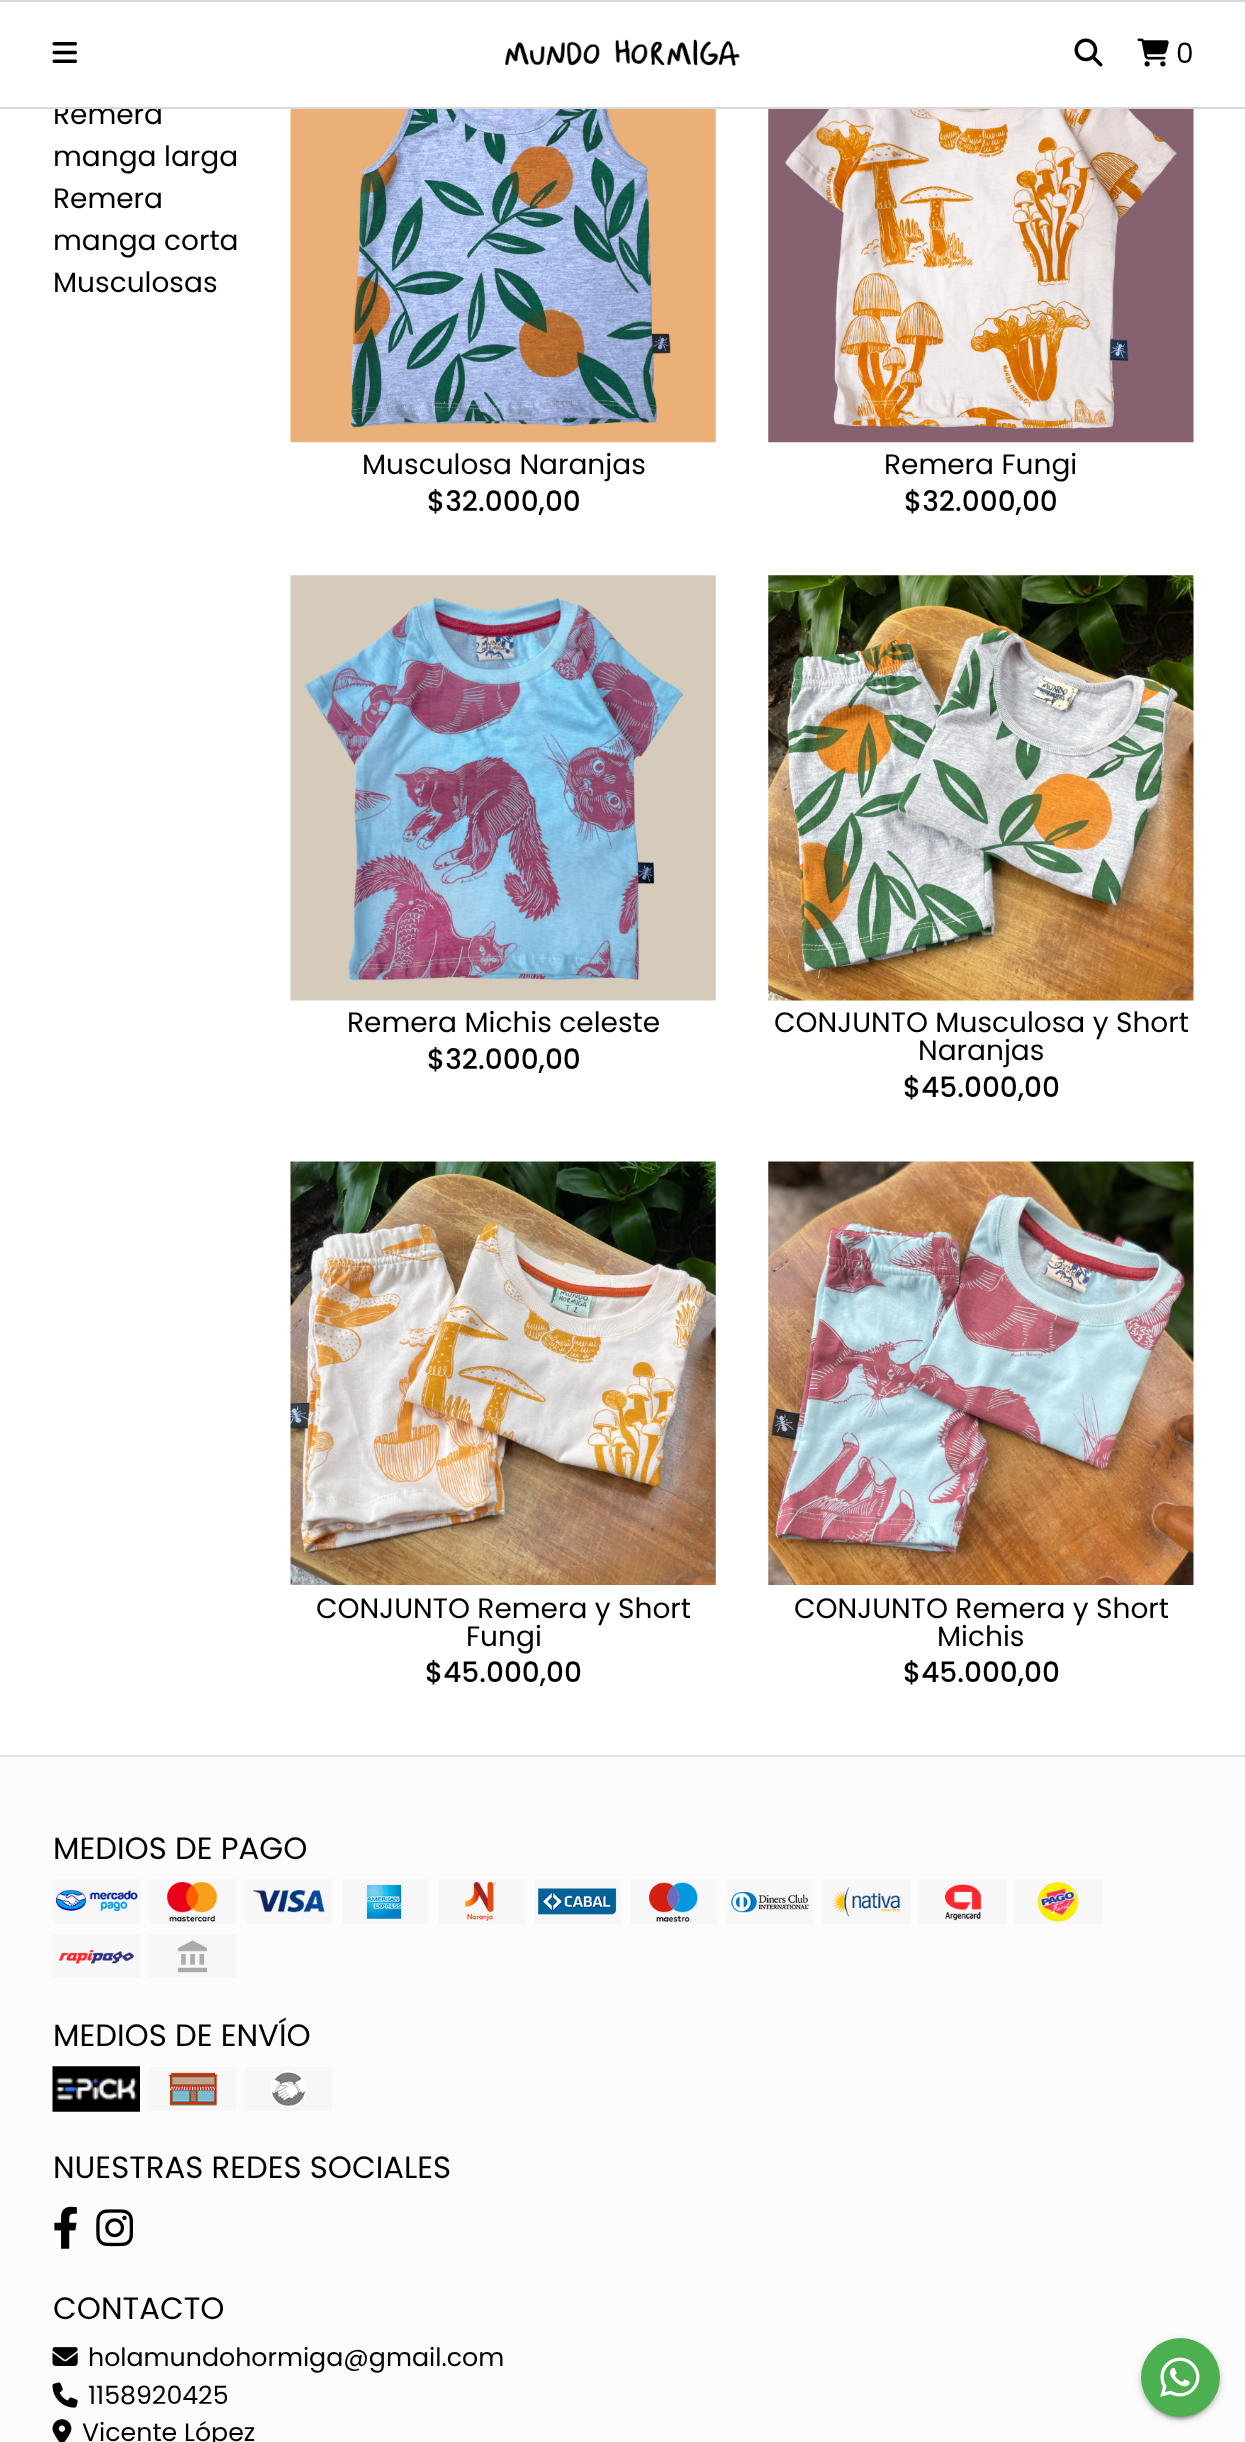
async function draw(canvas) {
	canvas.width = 1245;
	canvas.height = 2442;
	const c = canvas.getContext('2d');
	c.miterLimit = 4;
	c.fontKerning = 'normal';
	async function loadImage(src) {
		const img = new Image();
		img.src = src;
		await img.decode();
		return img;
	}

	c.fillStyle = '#fff';
	c.fillRect(0, 0, 1245, 2442);
	c.font = '28px Poppins';
	c.fillStyle = '#000';
	c.fillText('Remera', 53, 124);
	for (const [x, y, w, h, color] of [
		[54, 104, 13, 3, '#fff'],
		[0, 0, 1245, 2, '#d9d9d9'],
		[0, 107, 1245, 2, '#d9d9d9'],
	]) {
		c.fillStyle = color;
		c.fillRect(x, y, w, h);
	}
	c.drawImage(await loadImage('img1.png'), 52, 42, 25, 21);
	c.drawImage(await loadImage('img2.png'), 504, 39, 236, 27);
	c.drawImage(await loadImage('img3.png'), 1074, 38, 29, 29);
	c.drawImage(await loadImage('img4.png'), 1137, 38, 32, 29);
	c.fillStyle = '#000';
	for (const [text, x, y] of [
		['0', 1176, 63],
		['manga larga', 53, 166],
		['Remera', 53, 208],
		['manga corta', 53, 250],
		['Musculosas', 53, 292],
	]) {
		c.fillText(text, x, y);
	}
	c.drawImage(await loadImage('img5.png'), 290, 109, 426, 334);
	c.fillText('Musculosa Naranjas', 362, 474);
	c.font = '500 28px Poppins';
	c.fillText('$32.000,00', 427, 511);
	c.drawImage(await loadImage('img6.png'), 768, 109, 426, 334);
	c.font = '28px Poppins';
	c.fillText('Remera Fungi', 884, 474);
	c.font = '500 28px Poppins';
	c.fillText('$32.000,00', 904, 511);
	c.drawImage(await loadImage('img7.png'), 290, 575, 426, 426);
	c.font = '28px Poppins';
	c.fillText('Remera Michis celeste', 347, 1032);
	c.font = '500 28px Poppins';
	c.fillText('$32.000,00', 427, 1069);
	c.drawImage(await loadImage('img8.png'), 768, 575, 426, 426);
	c.font = '28px Poppins';
	c.fillText('CONJUNTO Musculosa y Short', 774, 1032);
	c.fillText('Naranjas', 918, 1060);
	c.font = '500 28px Poppins';
	c.fillText('$45.000,00', 903, 1097);
	c.drawImage(await loadImage('img9.png'), 290, 1161, 426, 424);
	c.font = '28px Poppins';
	c.fillText('CONJUNTO Remera y Short', 316, 1618);
	c.fillText('Fungi', 466, 1646);
	c.font = '500 28px Poppins';
	c.fillText('$45.000,00', 425, 1682);
	c.drawImage(await loadImage('img10.png'), 768, 1161, 426, 424);
	c.font = '28px Poppins';
	c.fillText('CONJUNTO Remera y Short', 794, 1618);
	c.fillText('Michis', 937, 1646);
	c.font = '500 28px Poppins';
	c.fillText('$45.000,00', 903, 1682);
	c.fillStyle = '#fcfcfc';
	c.fillRect(0, 1757, 1245, 685);
	c.fillStyle = '#e3e3e3';
	c.fillRect(0, 1755, 1245, 2);
	c.font = '30.75px Poppins';
	c.fillStyle = '#000';
	c.fillText('MEDIOS DE PAGO', 53, 1859);
	c.drawImage(await loadImage('img11.png'), 53, 1879, 87, 45);
	c.drawImage(await loadImage('img12.png'), 149, 1879, 87, 45);
	c.drawImage(await loadImage('img13.png'), 245, 1879, 87, 45);
	c.drawImage(await loadImage('img14.png'), 342, 1879, 86, 45);
	c.drawImage(await loadImage('img15.png'), 438, 1879, 87, 45);
	c.drawImage(await loadImage('img16.png'), 534, 1879, 87, 45);
	c.drawImage(await loadImage('img17.png'), 630, 1879, 87, 45);
	c.drawImage(await loadImage('img18.png'), 727, 1879, 86, 45);
	c.drawImage(await loadImage('img19.png'), 823, 1879, 87, 45);
	c.drawImage(await loadImage('img20.png'), 919, 1879, 87, 45);
	c.drawImage(await loadImage('img21.png'), 1015, 1879, 87, 45);
	c.drawImage(await loadImage('img22.png'), 53, 1934, 87, 44);
	c.drawImage(await loadImage('img23.png'), 149, 1934, 87, 44);
	c.fillText('MEDIOS DE ENVÍO', 53, 2046);
	c.drawImage(await loadImage('img24.png'), 52, 2066, 88, 46);
	c.drawImage(await loadImage('img25.png'), 149, 2067, 87, 44);
	c.drawImage(await loadImage('img26.png'), 245, 2067, 87, 44);
	c.fillText('NUESTRAS REDES SOCIALES', 53, 2178);
	c.drawImage(await loadImage('img27.png'), 54, 2206, 23, 43);
	c.drawImage(await loadImage('img28.png'), 96, 2209, 37, 38);
	c.fillText('CONTACTO', 53, 2319);
	c.drawImage(await loadImage('img29.png'), 52, 2347, 26, 19);
	c.font = '25.25px Poppins';
	c.fillText('holamundohormiga@gmail.com', 88, 2366);
	c.drawImage(await loadImage('img30.png'), 52, 2382, 26, 26);
	c.fillText('1158920425', 88, 2404);
	c.drawImage(await loadImage('img31.png'), 52, 2419, 20, 23);
	c.fillText('Vicente López', 82, 2441);
	c.fillStyle = '#00000033';
	c.filter = 'blur(1px)';
	c.beginPath();
	c.roundRect(1145, 2347, 71, 72, 35.5);
	c.fill();
	c.filter = 'none';
	c.fillStyle = '#0000001f';
	c.filter = 'blur(4.5px)';
	c.beginPath();
	c.roundRect(1141, 2340, 79, 79, 39.5);
	c.fill();
	c.filter = 'none';
	c.fillStyle = '#00000024';
	c.filter = 'blur(2px)';
	c.beginPath();
	c.roundRect(1141, 2342, 79, 78, 39);
	c.fill();
	c.filter = 'none';
	c.fillStyle = '#4caf50';
	c.beginPath();
	c.arc(1180.5, 2377.5, 39.5, 0, 2 * Math.PI);
	c.fill();
	c.drawImage(await loadImage('img32.png'), 1160, 2357, 40, 40);
}

draw(document.querySelector('canvas'));
